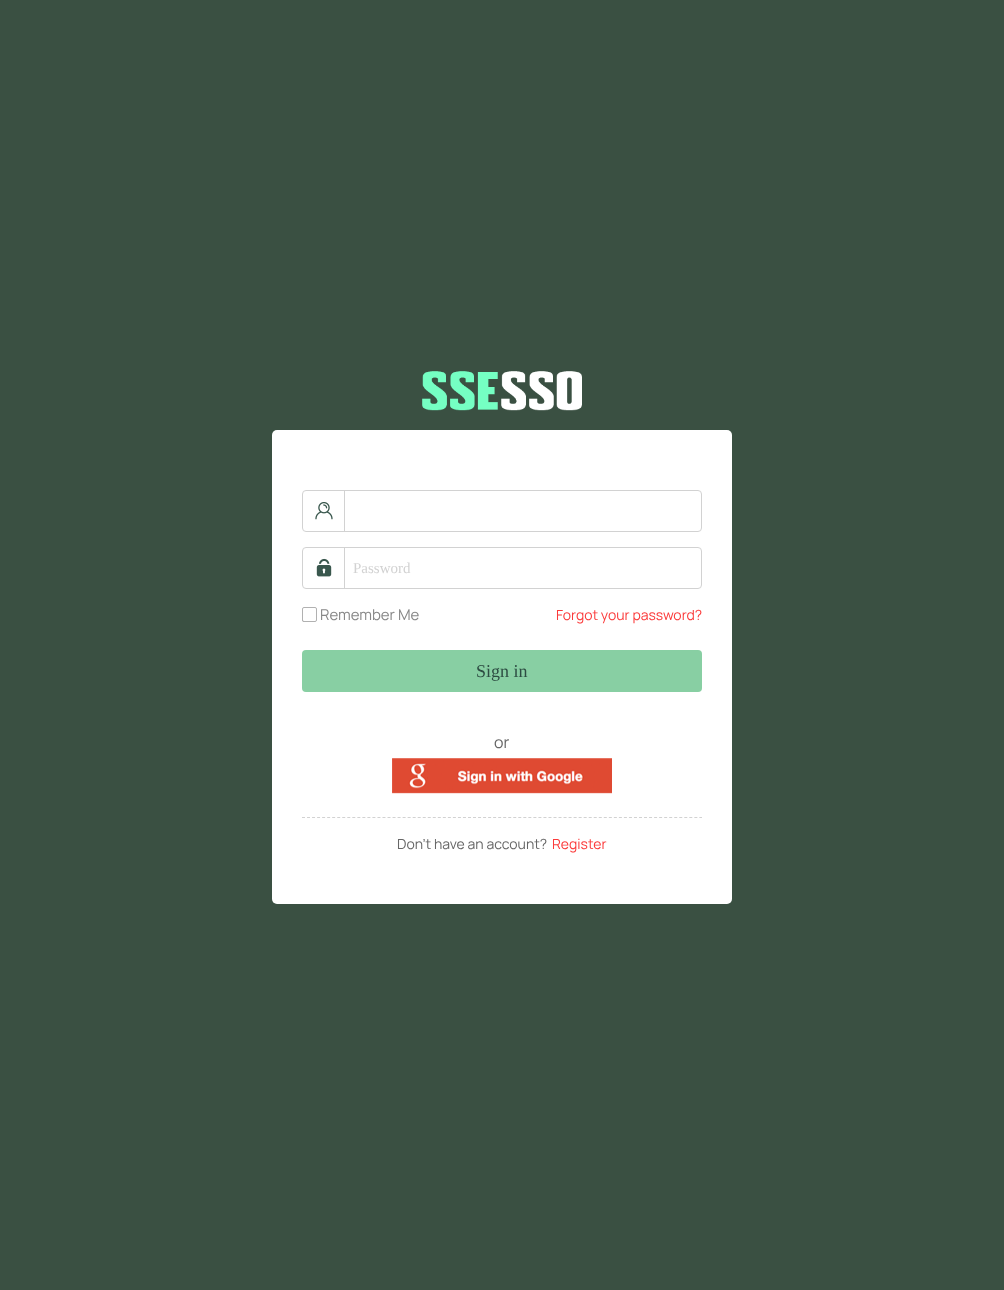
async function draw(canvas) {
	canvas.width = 1004;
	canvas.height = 1290;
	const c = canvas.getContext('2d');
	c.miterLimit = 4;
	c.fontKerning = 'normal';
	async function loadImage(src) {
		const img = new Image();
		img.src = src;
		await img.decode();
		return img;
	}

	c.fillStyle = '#3a5042';
	c.fillRect(0, 0, 1004, 1290);
	c.drawImage(await loadImage('img1.png'), 422, 371, 160, 40);
	c.fillStyle = '#fff';
	c.beginPath();
	c.roundRect(272, 430, 460, 474, 5);
	c.fill();
	c.beginPath();
	c.roundRect(302.5, 490.5, 399, 41, 3.5);
	c.strokeStyle = '#d2d2d2';
	c.stroke();
	c.fillStyle = '#d2d2d2';
	c.fillRect(344, 491, 1, 40);
	c.drawImage(await loadImage('img2.png'), 315, 502, 18, 18);
	c.beginPath();
	c.roundRect(302.5, 547.5, 399, 41, 3.5);
	c.stroke();
	c.fillRect(344, 548, 1, 40);
	c.drawImage(await loadImage('img3.png'), 316, 558, 16, 19);
	c.font = '15px Liberation Serif';
	c.fillText('Password', 353, 573);
	c.beginPath();
	c.roundRect(302.5, 610.5, 11, 11, 1.5);
	c.strokeStyle = '#767676';
	c.stroke();
	c.fillStyle = '#fff';
	c.beginPath();
	c.roundRect(302.5, 607.5, 14, 14, 1.5);
	c.fill();
	c.strokeStyle = '#b1b1b1';
	c.stroke();
	c.font = '15px Manrope';
	c.fillStyle = '#888';
	c.fillText('Remember Me', 320, 620);
	c.font = '14px Manrope';
	c.fillStyle = '#fb3a3a';
	c.fillText('Forgot your password?', 556, 620);
	c.fillStyle = '#88cfa3';
	c.beginPath();
	c.roundRect(302, 650, 400, 42, 4);
	c.fill();
	c.font = '18px Liberation Serif';
	c.fillStyle = '#2d4c42';
	c.fillText('Sign in', 476, 677);
	c.font = '16px Manrope';
	c.fillStyle = '#666';
	c.fillText('or', 494, 748);
	c.drawImage(await loadImage('img4.png'), 392, 758, 220, 36);
	c.beginPath();
	c.moveTo(302, 817.5);
	c.lineTo(702, 817.5);
	c.strokeStyle = '#d2d2d2';
	c.setLineDash([3, 2.03]);
	c.stroke();
	c.font = '14px Manrope';
	c.fillText('Don\'t have an account?', 397, 849);
	c.fillStyle = '#fb3a3a';
	c.fillText('Register', 552, 849);
}

draw(document.querySelector('canvas'));
